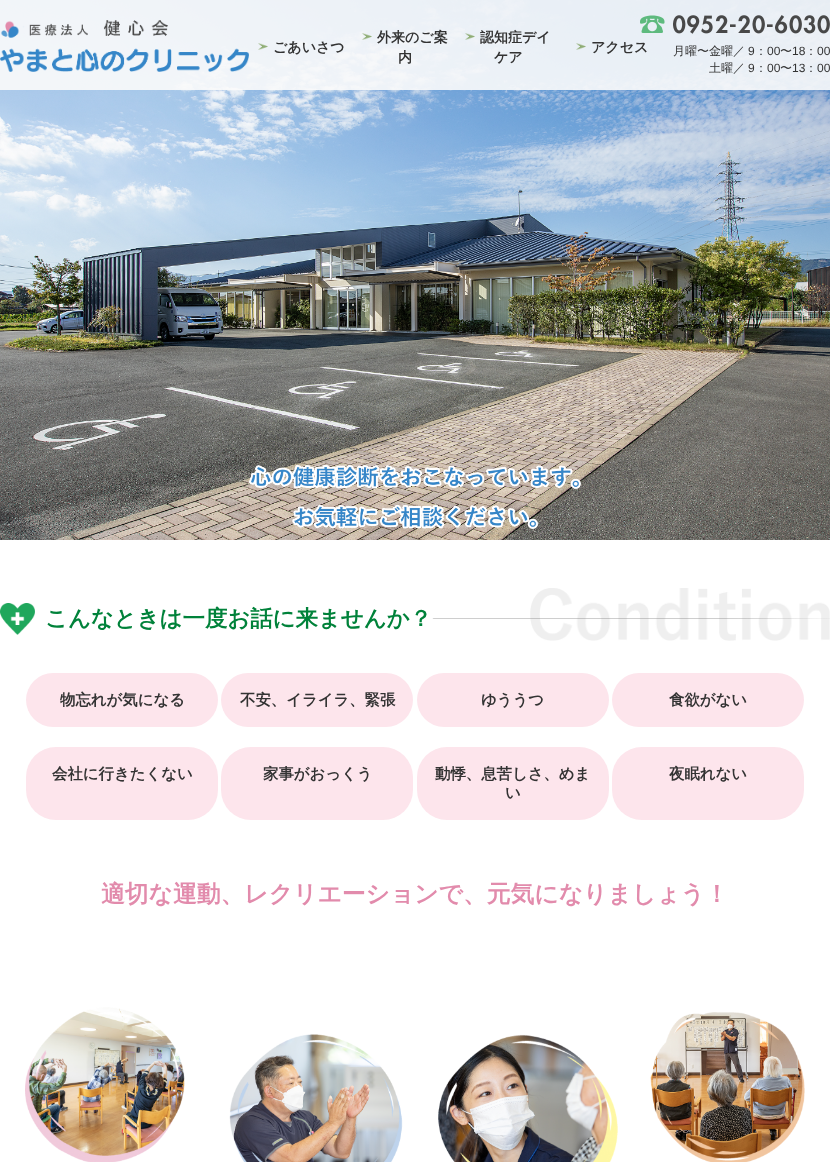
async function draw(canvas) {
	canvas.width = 830;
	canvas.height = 1162;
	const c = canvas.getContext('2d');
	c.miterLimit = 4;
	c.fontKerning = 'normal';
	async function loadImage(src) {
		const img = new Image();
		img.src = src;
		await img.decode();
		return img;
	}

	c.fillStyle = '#fff';
	c.fillRect(0, 0, 830, 1162);
	c.drawImage(await loadImage('img1.png'), 0, 0, 830, 540);
	c.fillStyle = '#fbfbfbe6';
	c.fillRect(0, 0, 830, 90);
	c.drawImage(await loadImage('img2.png'), 0, 20, 249, 52);
	c.drawImage(await loadImage('img3.png'), 258, 43, 10, 7);
	c.font = 'bold 14px WenQuanYi Zen Hei';
	c.fillStyle = '#333';
	c.fillText('ごあいさつ', 273, 52);
	c.drawImage(await loadImage('img4.png'), 362, 33, 10, 7);
	c.fillText('外来のご案', 377, 42);
	c.fillText('内', 398, 62);
	c.drawImage(await loadImage('img5.png'), 465, 33, 10, 7);
	c.fillText('認知症デイ', 480, 42);
	c.fillText('ケア', 494, 62);
	c.drawImage(await loadImage('img6.png'), 576, 43, 10, 7);
	c.fillText('アクセス', 591, 52);
	c.drawImage(await loadImage('img7.png'), 640, 15, 190, 19);
	c.font = '500 12px WenQuanYi Zen Hei';
	c.fillText('月曜〜金曜／', 673, 55);
	c.font = '12px Liberation Sans';
	c.fillText('9', 748, 55);
	c.font = '500 12px WenQuanYi Zen Hei';
	c.fillText('：', 755, 55);
	c.font = '12px Liberation Sans';
	c.fillText('00', 767, 55);
	c.font = '500 12px WenQuanYi Zen Hei';
	c.fillText('〜', 780, 55);
	c.font = '12px Liberation Sans';
	c.fillText('18', 792, 55);
	c.font = '500 12px WenQuanYi Zen Hei';
	c.fillText('：', 805, 55);
	c.font = '12px Liberation Sans';
	c.fillText('00', 817, 55);
	c.font = '500 12px WenQuanYi Zen Hei';
	c.fillText('土曜／', 709, 72);
	c.font = '12px Liberation Sans';
	c.fillText('9', 748, 72);
	c.font = '500 12px WenQuanYi Zen Hei';
	c.fillText('：', 755, 72);
	c.font = '12px Liberation Sans';
	c.fillText('00', 767, 72);
	c.font = '500 12px WenQuanYi Zen Hei';
	c.fillText('〜', 780, 72);
	c.font = '12px Liberation Sans';
	c.fillText('13', 792, 72);
	c.font = '500 12px WenQuanYi Zen Hei';
	c.fillText('：', 805, 72);
	c.font = '12px Liberation Sans';
	c.fillText('00', 817, 72);
	c.drawImage(await loadImage('img8.png'), 249, 465, 332, 64);
	c.drawImage(await loadImage('img9.png'), 249, 465, 332, 64);
	c.drawImage(await loadImage('img10.png'), 530, 588, 300, 53);
	c.drawImage(await loadImage('img11.png'), 432, 618, 398, 1);
	c.drawImage(await loadImage('img12.png'), 0, 603, 35, 32);
	c.font = 'bold 22.4px WenQuanYi Zen Hei';
	c.fillStyle = '#00823a';
	c.fillText('こんなときは一度お話に来ませんか？', 45, 626);
	c.fillStyle = '#fde5ec';
	c.beginPath();
	c.roundRect(26, 673, 192, 54, 27);
	c.fill();
	c.font = 'bold 15.4px WenQuanYi Zen Hei';
	c.fillStyle = '#333';
	c.fillText('物忘れが気になる', 60, 705);
	c.fillStyle = '#fde5ec';
	c.beginPath();
	c.roundRect(221, 673, 192, 54, 27);
	c.fill();
	c.fillStyle = '#333';
	c.fillText('不安、イライラ、緊張', 240, 705);
	c.fillStyle = '#fde5ec';
	c.beginPath();
	c.roundRect(417, 673, 192, 54, 27);
	c.fill();
	c.fillStyle = '#333';
	c.fillText('ゆううつ', 481, 705);
	c.fillStyle = '#fde5ec';
	c.beginPath();
	c.roundRect(612, 673, 192, 54, 27);
	c.fill();
	c.fillStyle = '#333';
	c.fillText('食欲がない', 669, 705);
	c.fillStyle = '#fde5ec';
	c.beginPath();
	c.roundRect(26, 747, 192, 73, 30);
	c.fill();
	c.fillStyle = '#333';
	c.fillText('会社に行きたくない', 52, 779);
	c.fillStyle = '#fde5ec';
	c.beginPath();
	c.roundRect(221, 747, 192, 73, 30);
	c.fill();
	c.fillStyle = '#333';
	c.fillText('家事がおっくう', 263, 779);
	c.fillStyle = '#fde5ec';
	c.beginPath();
	c.roundRect(417, 747, 192, 73, 30);
	c.fill();
	c.fillStyle = '#333';
	c.fillText('動悸、息苦しさ、めま', 435, 779);
	c.fillText('い', 505, 798);
	c.fillStyle = '#fde5ec';
	c.beginPath();
	c.roundRect(612, 747, 192, 73, 30);
	c.fill();
	c.fillStyle = '#333';
	c.fillText('夜眠れない', 669, 779);
	c.drawImage(await loadImage('img13.png'), 25, 1007, 780, 155);
	c.font = 'bold 23.8px WenQuanYi Zen Hei';
	c.fillStyle = '#e28bac';
	c.fillText('適切な運動、レクリエーションで、元気になりましょう！', 101, 902);
}

draw(document.querySelector('canvas'));
